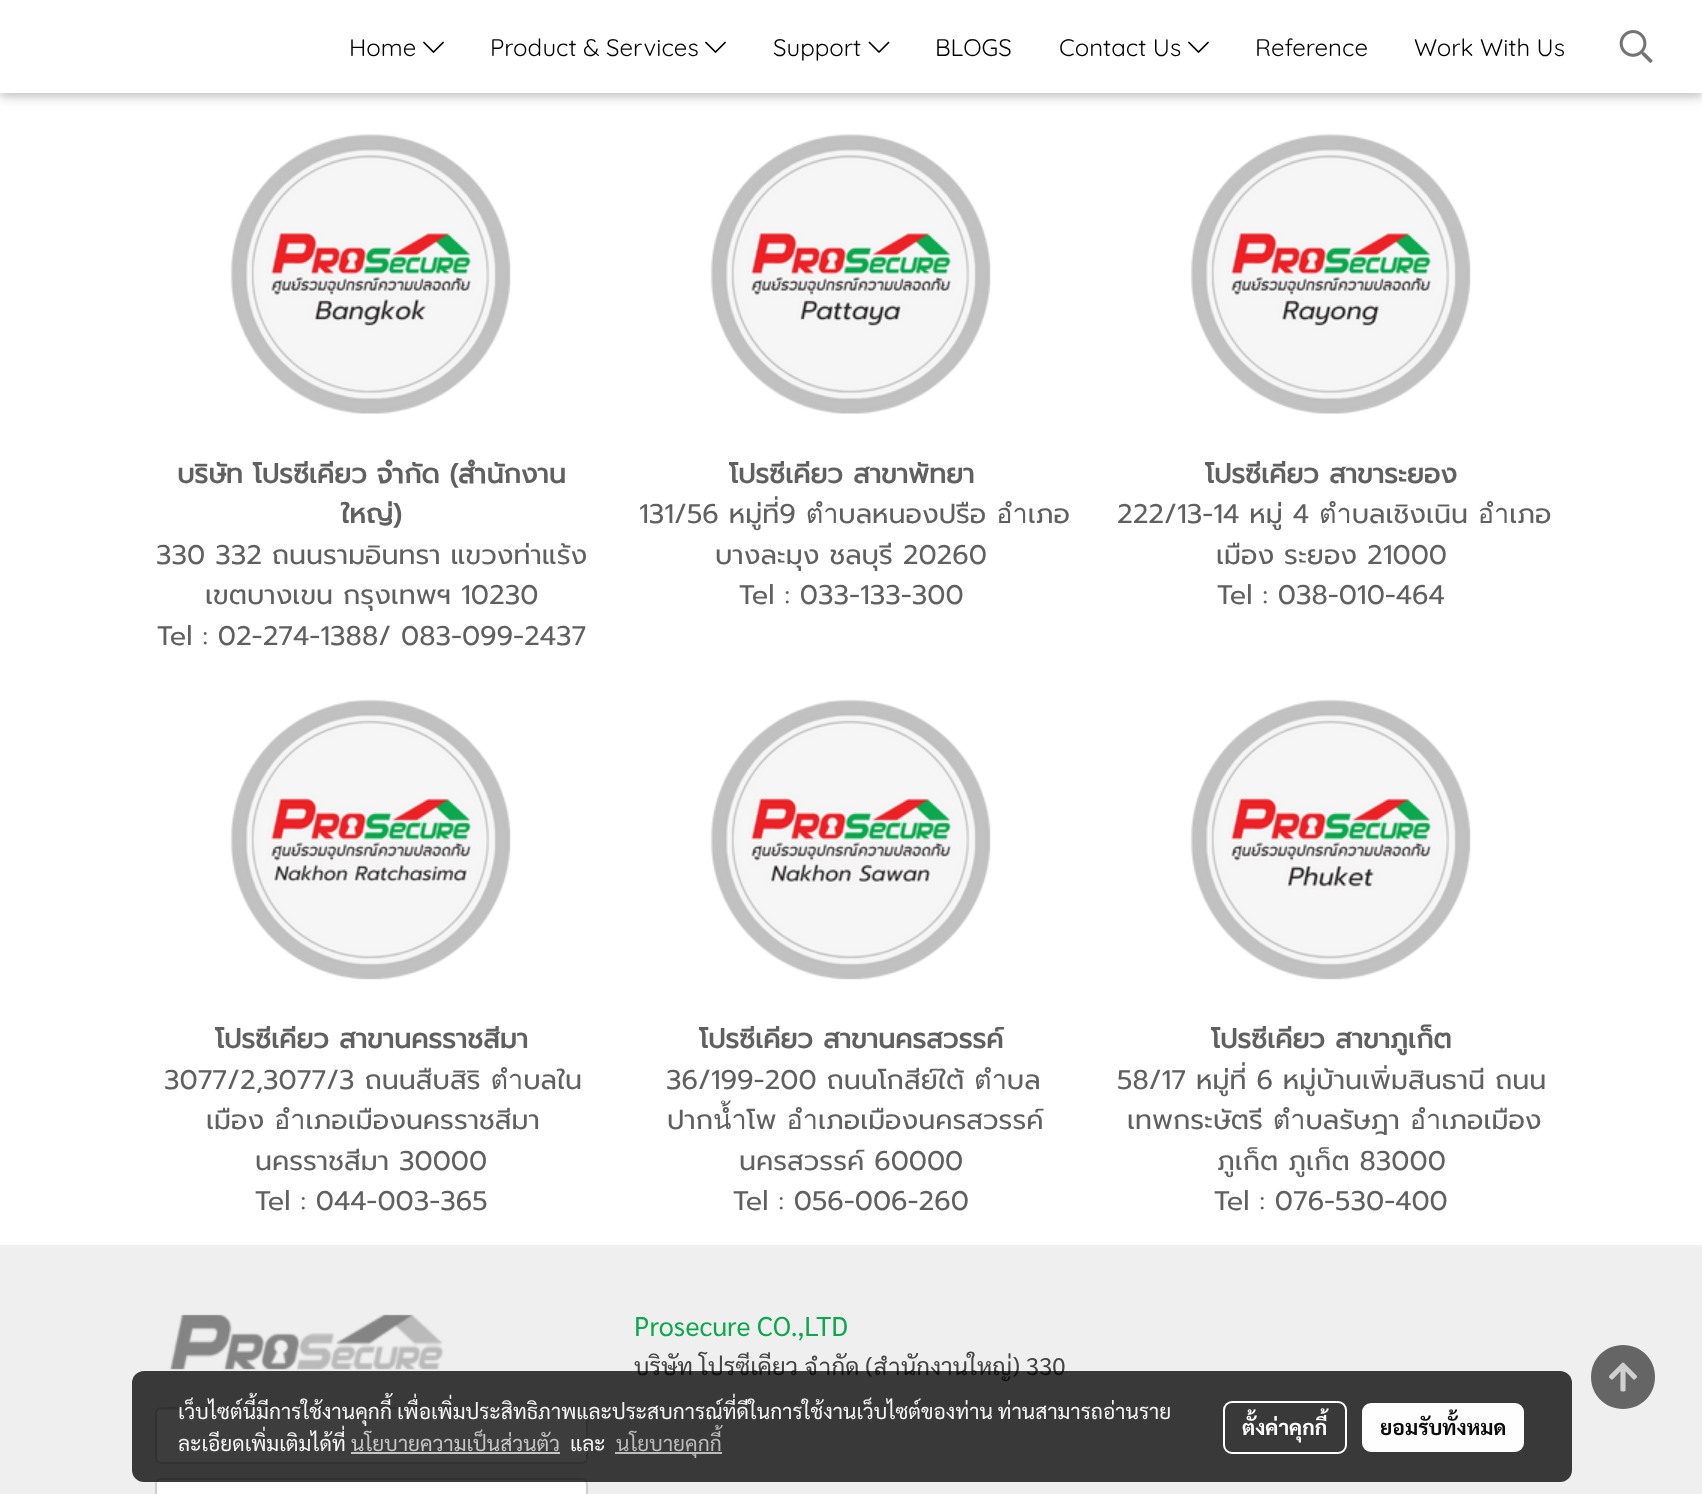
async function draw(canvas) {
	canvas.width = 1702;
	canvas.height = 1494;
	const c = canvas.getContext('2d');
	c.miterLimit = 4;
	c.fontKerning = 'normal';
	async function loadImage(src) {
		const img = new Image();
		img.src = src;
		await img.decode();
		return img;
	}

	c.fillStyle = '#fff';
	c.fillRect(0, 0, 1702, 1494);
	c.fillStyle = '#0000001f';
	c.filter = 'blur(7.5px)';
	c.beginPath();
	c.rect(0, 3, 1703, 93);
	c.fill();
	c.filter = 'none';
	c.fillStyle = '#00000029';
	c.filter = 'blur(4px)';
	c.beginPath();
	c.rect(0, 3, 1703, 93);
	c.fill();
	c.filter = 'none';
	c.fillStyle = '#fff';
	c.fillRect(0, 0, 1702, 93);
	c.font = '300 24px Quicksand';
	c.fillStyle = '#000';
	c.fillText('Home', 349, 56);
	c.drawImage(await loadImage('img1.png'), 423, 41, 21, 12);
	c.fillText('Product & Services', 490, 56);
	c.drawImage(await loadImage('img1.png'), 705, 41, 21, 12);
	c.fillText('Support', 773, 56);
	c.drawImage(await loadImage('img2.png'), 868, 41, 22, 12);
	c.fillText('BLOGS', 935, 56);
	c.fillText('Contact Us', 1059, 56);
	c.drawImage(await loadImage('img1.png'), 1188, 41, 21, 12);
	c.fillText('Reference', 1255, 56);
	c.fillText('Work With Us', 1414, 56);
	c.drawImage(await loadImage('img3.png'), 1619, 30, 34, 33);
	c.drawImage(await loadImage('img4.png'), 230, 134, 281, 280);
	c.font = 'bold 27px Prompt';
	c.fillStyle = '#606060';
	c.fillText('บริษัท โปรซีเคียว จำกัด (สำนักงาน', 177, 483);
	c.fillText('ใหญ่)', 341, 523);
	c.font = '27px Prompt';
	for (const [text, x, y] of [
		['330 332 ถนนรามอินทรา แขวงท่าแร้ง', 156, 564],
		['เขตบางเขน กรุงเทพฯ 10230', 205, 604],
		['Tel : 02-274-1388/ 083-099-2437', 157, 645],
	]) {
		c.fillText(text, x, y);
	}
	c.drawImage(await loadImage('img5.png'), 710, 134, 281, 280);
	c.font = 'bold 27px Prompt';
	c.fillText('โปรซีเคียว สาขาพัทยา', 729, 483);
	c.font = '27px Prompt';
	for (const [text, x, y] of [
		['131/56 หมู่ที่9 ตำบลหนองปรือ อำเภอ', 639, 523],
		['บางละมุง ชลบุรี 20260', 715, 564],
		['Tel : 033-133-300', 739, 604],
	]) {
		c.fillText(text, x, y);
	}
	c.drawImage(await loadImage('img6.png'), 1190, 134, 281, 280);
	c.font = 'bold 27px Prompt';
	c.fillText('โปรซีเคียว สาขาระยอง', 1205, 483);
	c.font = '27px Prompt';
	for (const [text, x, y] of [
		['222/13-14 หมู่ 4 ตำบลเชิงเนิน อำเภอ', 1117, 523],
		['เมือง ระยอง 21000', 1216, 564],
		['Tel : 038-010-464', 1217, 604],
	]) {
		c.fillText(text, x, y);
	}
	c.drawImage(await loadImage('img7.png'), 230, 699, 281, 281);
	c.font = 'bold 27px Prompt';
	c.fillText('โปรซีเคียว สาขานครราชสีมา', 215, 1048);
	c.font = '27px Prompt';
	for (const [text, x, y] of [
		['3077/2,3077/3 ถนนสืบสิริ ตำบลใน', 164, 1089],
		['เมือง อำเภอเมืองนครราชสีมา', 206, 1129],
		['นครราชสีมา 30000', 255, 1170],
		['Tel : 044-003-365', 255, 1210],
	]) {
		c.fillText(text, x, y);
	}
	c.drawImage(await loadImage('img8.png'), 710, 699, 281, 281);
	c.font = 'bold 27px Prompt';
	c.fillText('โปรซีเคียว สาขานครสวรรค์', 699, 1048);
	c.font = '27px Prompt';
	for (const [text, x, y] of [
		['36/199-200 ถนนโกสีย์ใต้ ตำบล', 666, 1089],
		['ปากน้ำโพ อำเภอเมืองนครสวรรค์', 667, 1129],
		['นครสวรรค์ 60000', 739, 1170],
		['Tel : 056-006-260', 733, 1210],
	]) {
		c.fillText(text, x, y);
	}
	c.drawImage(await loadImage('img9.png'), 1190, 699, 281, 281);
	c.font = 'bold 27px Prompt';
	c.fillText('โปรซีเคียว สาขาภูเก็ต', 1211, 1048);
	c.font = '27px Prompt';
	for (const [text, x, y] of [
		['58/17 หมู่ที่ 6 หมู่บ้านเพิ่มสินธานี ถนน', 1117, 1089],
		['เทพกระษัตรี ตำบลรัษฎา อำเภอเมือง', 1127, 1129],
		['ภูเก็ต ภูเก็ต 83000', 1217, 1170],
		['Tel : 076-530-400', 1214, 1210],
	]) {
		c.fillText(text, x, y);
	}
	c.fillStyle = '#efefef';
	c.fillRect(0, 1245, 1702, 249);
	c.drawImage(await loadImage('img10.png'), 169, 1314, 275, 56);
	c.fillStyle = '#fff';
	c.beginPath();
	c.roundRect(155, 1407, 433, 57, 6);
	c.fill();
	c.fillStyle = '#ececec';
	c.beginPath();
	c.moveTo(160, 1410);
	c.lineTo(582, 1410);
	c.bezierCurveTo(584, 1410, 586, 1412, 586, 1414);
	c.lineTo(586, 1461);
	c.bezierCurveTo(587, 1460, 587, 1459, 587, 1458);
	c.lineTo(587, 1414);
	c.bezierCurveTo(587, 1411, 585, 1409, 582, 1409);
	c.lineTo(161, 1409);
	c.bezierCurveTo(158, 1409, 156, 1411, 156, 1414);
	c.bezierCurveTo(156, 1412, 158, 1410, 160, 1410);
	c.closePath();
	c.fill();
	c.beginPath();
	c.roundRect(156, 1408, 431, 55, 5);
	c.strokeStyle = '#cdced2';
	c.lineWidth = 2;
	c.stroke();
	c.fillStyle = '#fff';
	c.beginPath();
	c.roundRect(155, 1478, 433, 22, 6);
	c.fill();
	c.fillStyle = '#ececec';
	c.beginPath();
	c.moveTo(160, 1480);
	c.lineTo(582, 1480);
	c.bezierCurveTo(584, 1480, 586, 1483, 586, 1485);
	c.lineTo(586, 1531);
	c.bezierCurveTo(587, 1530, 587, 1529, 587, 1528);
	c.lineTo(587, 1484);
	c.bezierCurveTo(587, 1481, 585, 1479, 582, 1479);
	c.lineTo(161, 1479);
	c.bezierCurveTo(158, 1479, 156, 1481, 156, 1484);
	c.lineTo(156, 1485);
	c.bezierCurveTo(156, 1483, 158, 1480, 160, 1480);
	c.closePath();
	c.fill();
	c.beginPath();
	c.roundRect(156, 1479, 431, 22, 5);
	c.stroke();
	c.font = '27px Sarabun';
	c.fillStyle = '#0ca84d';
	c.fillText('Prosecure CO.,LTD', 634, 1336);
	c.font = '24px Sarabun';
	c.fillStyle = '#434343';
	c.fillText('บริษัท โปรซีเคียว จำกัด (สำนักงานใหญ่) 330', 634, 1375);
	c.fillStyle = '#666565';
	c.beginPath();
	c.moveTo(1623, 1345);
	c.bezierCurveTo(1605, 1345, 1591, 1359, 1591, 1377);
	c.bezierCurveTo(1591, 1395, 1605, 1409, 1623, 1409);
	c.bezierCurveTo(1641, 1409, 1655, 1395, 1655, 1377);
	c.bezierCurveTo(1655, 1359, 1641, 1345, 1623, 1345);
	c.closePath();
	c.fill();
	c.drawImage(await loadImage('img11.png'), 1609, 1362, 28, 30);
	c.fillStyle = '#000000c2';
	c.beginPath();
	c.roundRect(132, 1371, 1440, 111, 12);
	c.fill();
	c.font = '21px Sarabun';
	c.fillStyle = '#f5f5f5';
	c.fillText('เว็บไซต์นี้มีการใช้งานคุกกี้ เพื่อเพิ่มประสิทธิภาพและประสบการณ์ที่ดีในการใช้งานเว็บไซต์ของท่าน ท่านสามารถอ่านราย', 178, 1419);
	c.fillText('ละเอียดเพิ่มเติมได้ที่', 178, 1451);
	c.fillStyle = '#c5c5c5';
	c.fillText('นโยบายความเป็นส่วนตัว', 351, 1451);
	c.fillRect(351, 1452, 209, 2);
	c.fillStyle = '#f5f5f5';
	c.fillText('และ', 570, 1451);
	c.fillStyle = '#c2c2c2f2';
	c.fillRect(615, 1452, 107, 2);
	c.fillStyle = '#bbb';
	c.fillText('นโยบายคุกกี้', 616, 1451);
	c.beginPath();
	c.roundRect(1224, 1402, 122, 51, 8);
	c.strokeStyle = '#fefefe';
	c.stroke();
	c.font = 'bold 21px Sarabun';
	c.fillStyle = '#fefefe';
	c.fillText('ตั้งค่าคุกกี้', 1242, 1435);
	c.beginPath();
	c.roundRect(1362, 1403, 162, 49, 9);
	c.fill();
	c.fillStyle = '#0c0c0c';
	c.fillText('ยอมรับทั้งหมด', 1380, 1435);
}

draw(document.querySelector('canvas'));
